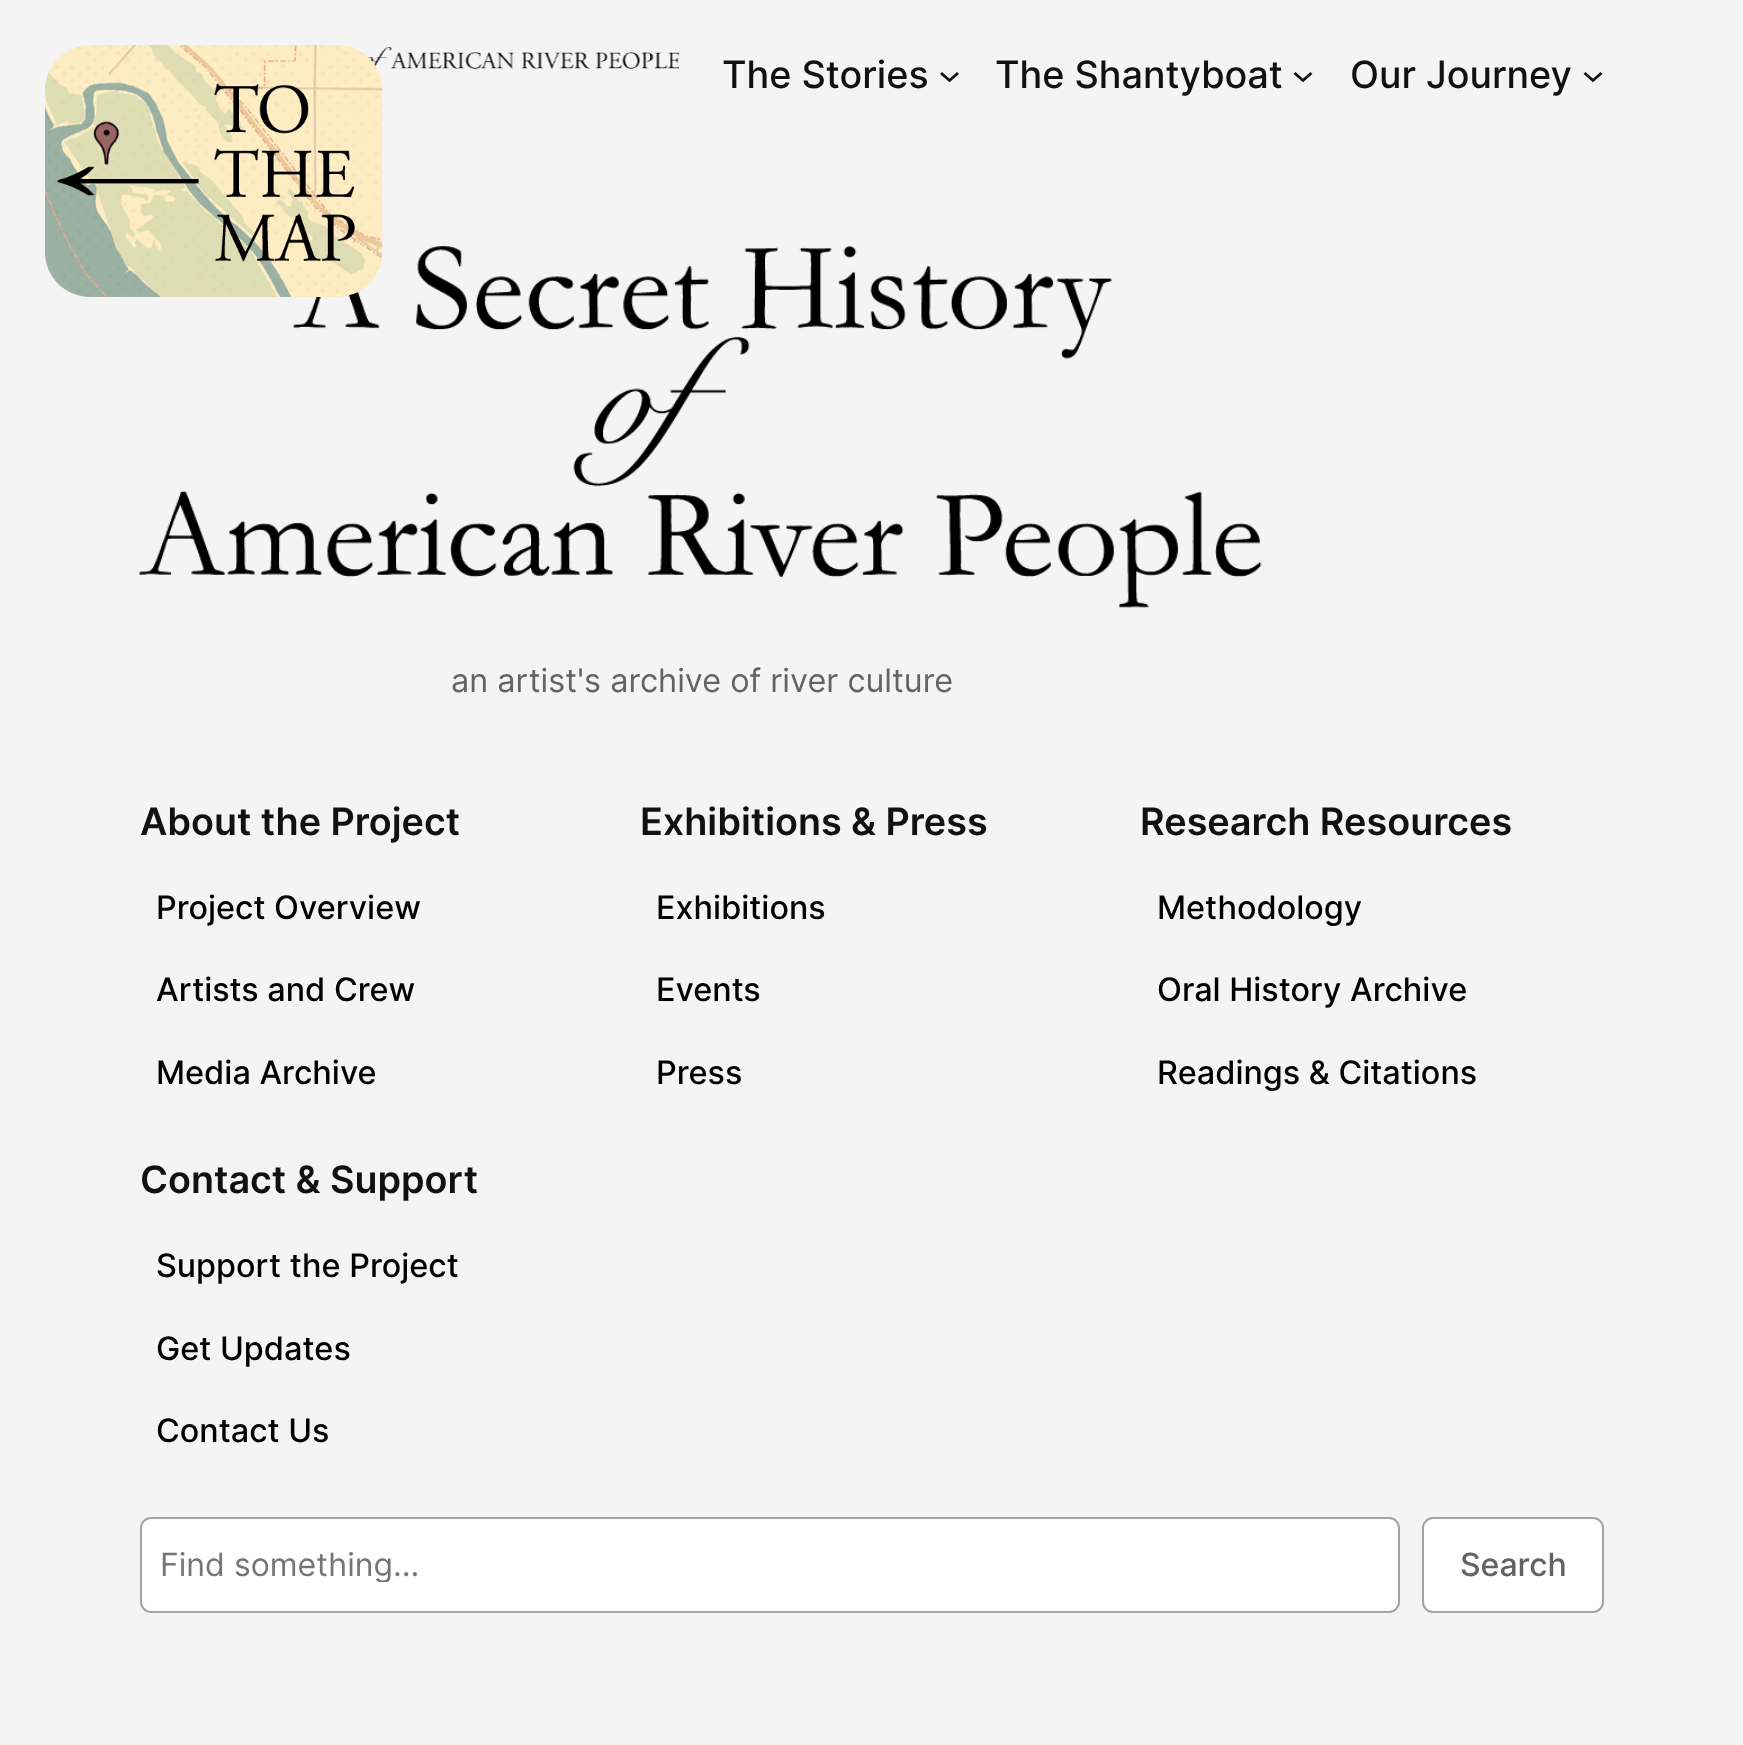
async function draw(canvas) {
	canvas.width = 1743;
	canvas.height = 1745;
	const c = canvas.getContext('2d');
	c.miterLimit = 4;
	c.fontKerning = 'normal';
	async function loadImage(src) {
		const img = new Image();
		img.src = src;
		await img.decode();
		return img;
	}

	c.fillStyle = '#f4f4f4';
	c.fillRect(0, 0, 1743, 1745);
	c.drawImage(await loadImage('img2.png'), 368, 47, 311, 22);
	c.drawImage(await loadImage('img3.png'), 139, 246, 1123, 362);
	c.drawImage(await loadImage('img1.png'), 45, 45, 338, 252);
	c.font = '500 37.75px Inter';
	c.fillStyle = '#111';
	c.fillText('The Stories', 722, 88);
	c.beginPath();
	c.moveTo(941, 73);
	c.lineTo(949.5, 80.5);
	c.lineTo(958, 73);
	c.strokeStyle = '#111';
	c.lineWidth = 2.8;
	c.stroke();
	c.fillText('The Shantyboat', 995, 88);
	c.beginPath();
	c.moveTo(1294.5, 73);
	c.lineTo(1303, 80.5);
	c.lineTo(1311.5, 73);
	c.stroke();
	c.fillText('Our Journey', 1350, 88);
	c.beginPath();
	c.moveTo(1584.5, 73);
	c.lineTo(1593, 80.5);
	c.lineTo(1601.5, 73);
	c.stroke();
	c.font = '32.4px Inter';
	c.fillStyle = '#636363';
	c.fillText('an artist\'s archive of river culture', 451, 692);
	c.font = '600 37.75px Inter';
	c.fillStyle = '#111';
	c.fillText('About the Project', 140, 835);
	c.font = '500 32.4px Inter';
	c.fillStyle = '#000';
	for (const [text, x, y] of [
		['Project Overview', 156, 919],
		['Artists and Crew', 156, 1001],
		['Media Archive', 156, 1084],
	]) {
		c.fillText(text, x, y);
	}
	c.font = '600 37.75px Inter';
	c.fillStyle = '#111';
	c.fillText('Exhibitions & Press', 640, 835);
	c.font = '500 32.4px Inter';
	c.fillStyle = '#000';
	for (const [text, x, y] of [
		['Exhibitions', 656, 919],
		['Events', 656, 1001],
		['Press', 656, 1084],
	]) {
		c.fillText(text, x, y);
	}
	c.font = '600 37.75px Inter';
	c.fillStyle = '#111';
	c.fillText('Research Resources', 1140, 835);
	c.font = '500 32.4px Inter';
	c.fillStyle = '#000';
	for (const [text, x, y] of [
		['Methodology', 1157, 919],
		['Oral History Archive', 1157, 1001],
		['Readings & Citations', 1157, 1084],
	]) {
		c.fillText(text, x, y);
	}
	c.font = '600 37.75px Inter';
	c.fillStyle = '#111';
	c.fillText('Contact & Support', 140, 1193);
	c.font = '500 32.4px Inter';
	c.fillStyle = '#000';
	for (const [text, x, y] of [
		['Support the Project', 156, 1277],
		['Get Updates', 156, 1360],
		['Contact Us', 156, 1442],
	]) {
		c.fillText(text, x, y);
	}
	c.fillStyle = '#fff';
	c.beginPath();
	c.roundRect(141, 1518, 1258, 94, 10);
	c.fill();
	c.strokeStyle = '#a4a4a4';
	c.lineWidth = 2;
	c.stroke();
	c.save();
	c.beginPath();
	c.rect(160, 1544, 1188, 38);
	c.clip();
	c.font = '32px Inter';
	c.fillStyle = '#757575';
	c.fillText('Find something...', 160, 1576);
	c.restore();
	c.beginPath();
	c.roundRect(1423, 1518, 180, 94, 10);
	c.fill();
	c.stroke();
	c.font = '500 32px Inter';
	c.fillStyle = '#636363';
	c.fillText('Search', 1460, 1576);
}

draw(document.querySelector('canvas'));
